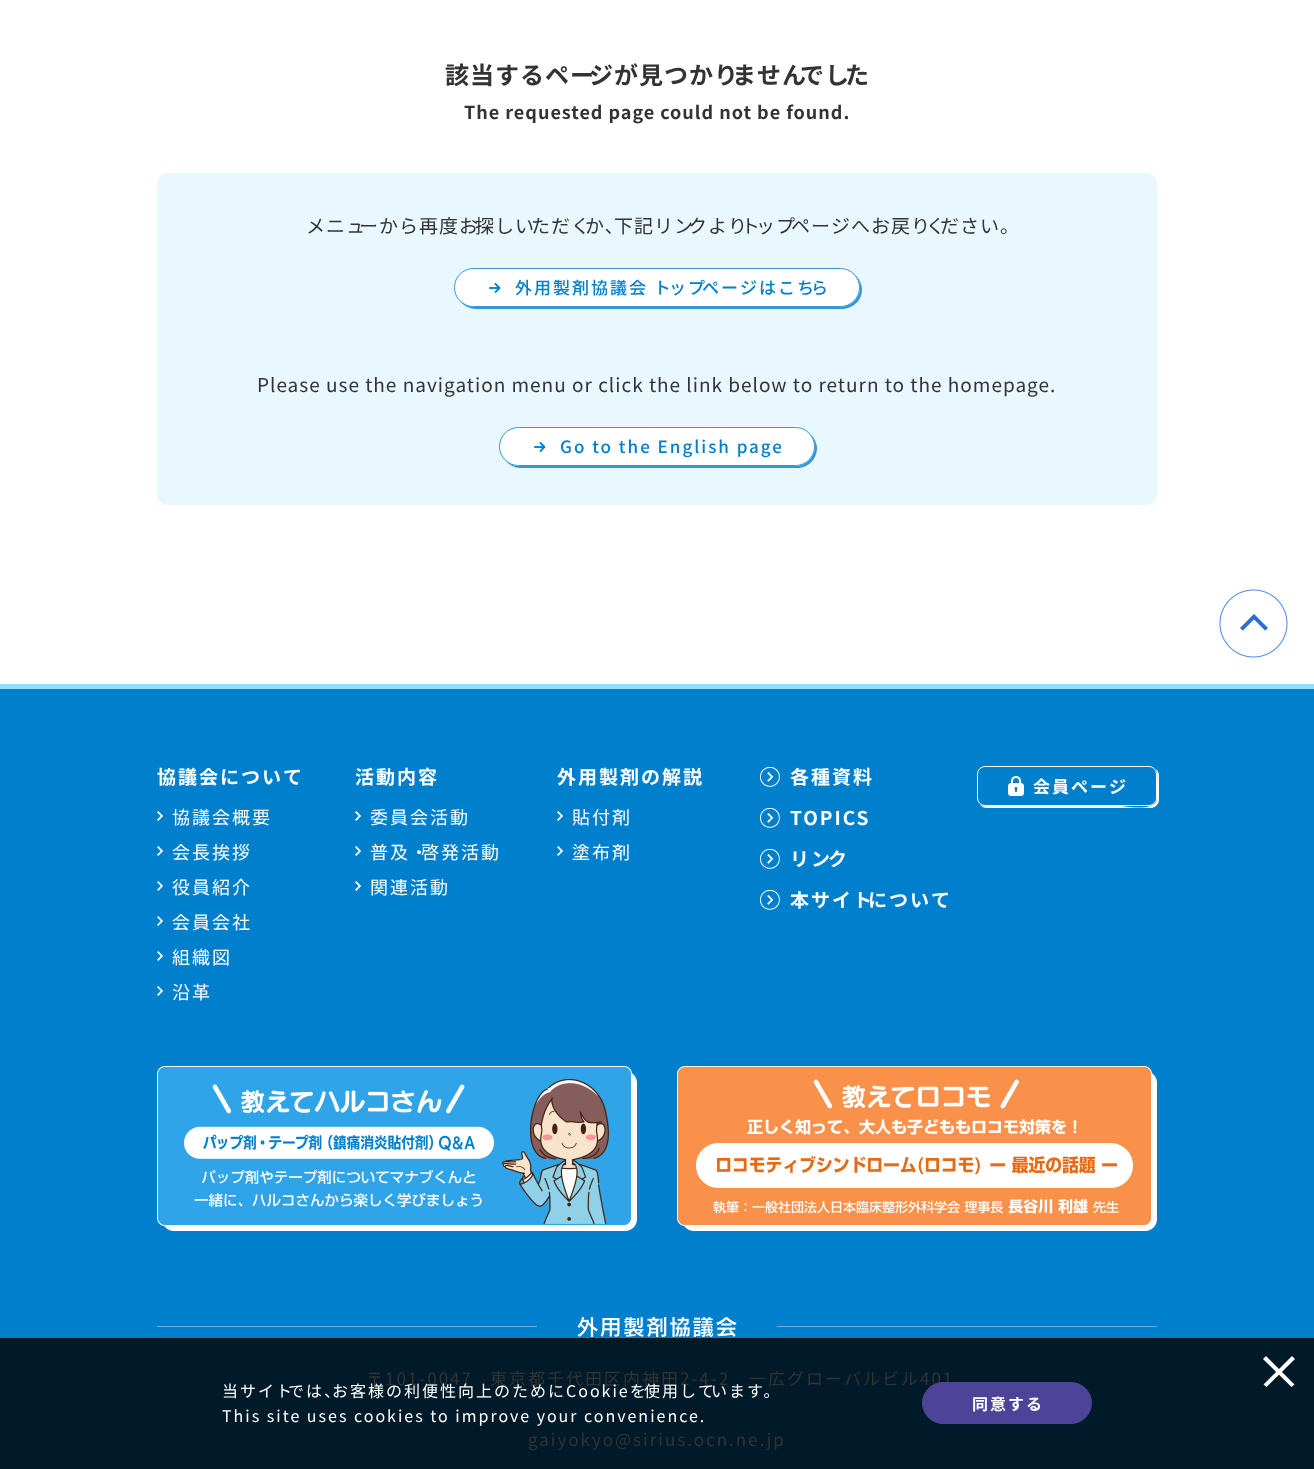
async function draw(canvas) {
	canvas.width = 1314;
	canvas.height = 1469;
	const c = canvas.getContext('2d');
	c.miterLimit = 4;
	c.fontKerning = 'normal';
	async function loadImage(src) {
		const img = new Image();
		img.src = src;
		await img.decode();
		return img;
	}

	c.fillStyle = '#fff';
	c.fillRect(0, 0, 1314, 1469);
	c.letterSpacing = '1px';
	c.font = 'bold 24px Noto Sans JP';
	c.fillStyle = '#333';
	c.fillText('該当するペー', 445, 84);
	c.fillText('ジが見つかり', 589, 84);
	c.fillText('ません', 732, 84);
	c.fillText('でし', 800, 84);
	c.fillText('た', 845, 84);
	c.font = 'bold 18px Noto Sans JP';
	c.fillText('The requested page could not be found.', 464, 119);
	c.fillStyle = '#e9f7ff';
	c.beginPath();
	c.roundRect(157, 173, 1000, 332, 10);
	c.fill();
	c.font = '19px Noto Sans JP';
	c.fillStyle = '#333';
	c.fillText('メニュ', 306, 233);
	c.fillText('ーから再度お', 359, 233);
	c.fillText('探しい', 475, 233);
	c.fillText('ただく', 531, 233);
	c.fillText('か、', 585, 233);
	c.fillText('下記リン', 614, 233);
	c.fillText('クより', 688, 233);
	c.fillText('ト', 741, 233);
	c.fillText('ップ', 756, 233);
	c.fillText('ページへお戻り', 791, 233);
	c.fillText('く', 926, 233);
	c.fillText('ださい。', 940, 233);
	c.fillStyle = '#3399d6';
	c.beginPath();
	c.moveTo(461, 302);
	c.bezierCurveTo(464, 306, 470, 309, 476, 309);
	c.lineTo(842, 309);
	c.bezierCurveTo(853, 309, 862, 300, 862, 290);
	c.bezierCurveTo(862, 284, 859, 278, 855, 275);
	c.bezierCurveTo(858, 278, 860, 283, 860, 288);
	c.bezierCurveTo(860, 298, 851, 307, 840, 307);
	c.lineTo(474, 307);
	c.bezierCurveTo(469, 307, 464, 305, 461, 302);
	c.closePath();
	c.fill();
	c.fillStyle = '#fff';
	c.beginPath();
	c.roundRect(454.5, 268.5, 405, 38, 19);
	c.fill();
	c.strokeStyle = '#3399d6';
	c.stroke();
	c.drawImage(await loadImage('img1.png'), 489, 283, 12, 10);
	c.letterSpacing = '2px';
	c.font = '500 17px Noto Sans JP';
	c.fillStyle = '#0080cc';
	c.fillText('外用製剤協議会 ト', 515, 294);
	c.fillText('ップ', 669, 294);
	c.fillText('ページはこち', 702, 294);
	c.fillText('ら', 811, 294);
	c.letterSpacing = '1px';
	c.font = '19px Noto Sans JP';
	c.fillStyle = '#333';
	c.fillText('Please use the navigation menu or click the link below to return to the homepage.', 257, 392);
	c.fillStyle = '#3399d6';
	c.beginPath();
	c.moveTo(506, 461);
	c.bezierCurveTo(509, 465, 515, 468, 520, 468);
	c.lineTo(798, 468);
	c.bezierCurveTo(808, 468, 817, 459, 817, 448);
	c.bezierCurveTo(817, 443, 814, 437, 810, 434);
	c.bezierCurveTo(813, 437, 815, 442, 815, 446);
	c.bezierCurveTo(815, 457, 806, 466, 796, 466);
	c.lineTo(518, 466);
	c.bezierCurveTo(514, 466, 509, 464, 506, 461);
	c.closePath();
	c.fill();
	c.fillStyle = '#fff';
	c.beginPath();
	c.roundRect(499.5, 427.5, 315, 38, 19);
	c.fill();
	c.stroke();
	c.drawImage(await loadImage('img1.png'), 534, 442, 12, 10);
	c.letterSpacing = '2px';
	c.font = '500 17px Noto Sans JP';
	c.fillStyle = '#0080cc';
	c.fillText('Go to the English page', 560, 453);
	c.drawImage(await loadImage('img2.png'), 1219, 589, 69, 69);
	for (const [x, y, w, h, color] of [
		[0, 689, 1314, 649, '#0080cc'],
		[0, 1338, 1314, 131, '#001a29'],
		[0, 684, 1314, 5, '#92deff'],
	]) {
		c.fillStyle = color;
		c.fillRect(x, y, w, h);
	}
	c.font = 'bold 19px Noto Sans JP';
	c.fillStyle = '#fff';
	c.fillText('協議会について', 157, 784);
	c.drawImage(await loadImage('img3.png'), 157, 811, 6, 10);
	c.font = '18px Noto Sans JP';
	c.fillText('協議会概要', 172, 824);
	c.drawImage(await loadImage('img3.png'), 157, 846, 6, 10);
	c.fillText('会長挨拶', 172, 859);
	c.drawImage(await loadImage('img3.png'), 157, 881, 6, 10);
	c.fillText('役員紹介', 172, 894);
	c.drawImage(await loadImage('img3.png'), 157, 916, 6, 10);
	c.fillText('会員会社', 172, 929);
	c.drawImage(await loadImage('img3.png'), 157, 951, 6, 10);
	c.fillText('組織図', 172, 964);
	c.drawImage(await loadImage('img3.png'), 157, 986, 6, 10);
	c.fillText('沿革', 172, 999);
	c.font = 'bold 19px Noto Sans JP';
	c.fillText('活動内容', 355, 784);
	c.drawImage(await loadImage('img3.png'), 355, 811, 6, 10);
	c.font = '18px Noto Sans JP';
	c.fillText('委員会活動', 370, 824);
	c.drawImage(await loadImage('img3.png'), 355, 846, 6, 10);
	c.fillText('普及・', 370, 859);
	c.fillText('啓発活動', 421, 859);
	c.drawImage(await loadImage('img3.png'), 355, 881, 6, 10);
	c.fillText('関連活動', 370, 894);
	c.font = 'bold 19px Noto Sans JP';
	c.fillText('外用製剤の解説', 557, 784);
	c.drawImage(await loadImage('img3.png'), 557, 811, 6, 10);
	c.font = '18px Noto Sans JP';
	c.fillText('貼付剤', 572, 824);
	c.drawImage(await loadImage('img3.png'), 557, 846, 6, 10);
	c.fillText('塗布剤', 572, 859);
	c.drawImage(await loadImage('img4.png'), 760, 767, 20, 20);
	c.font = 'bold 19px Noto Sans JP';
	c.fillText('各種資料', 790, 784);
	c.drawImage(await loadImage('img4.png'), 760, 808, 20, 20);
	c.fillText('TOPICS', 790, 825);
	c.drawImage(await loadImage('img4.png'), 760, 849, 20, 20);
	c.fillText('リン', 790, 866);
	c.fillText('ク', 828, 866);
	c.drawImage(await loadImage('img4.png'), 760, 890, 20, 20);
	c.fillText('本サイト', 790, 907);
	c.fillText('について', 868, 907);
	c.beginPath();
	c.moveTo(980, 805);
	c.bezierCurveTo(982, 807, 984, 808, 987, 808);
	c.lineTo(1151, 808);
	c.bezierCurveTo(1155, 808, 1159, 804, 1159, 800);
	c.lineTo(1159, 776);
	c.bezierCurveTo(1159, 773, 1158, 771, 1156, 769);
	c.bezierCurveTo(1158, 773, 1157, 782, 1157, 786);
	c.lineTo(1157, 800);
	c.bezierCurveTo(1154, 812, 1122, 806, 1122, 806);
	c.lineTo(983, 806);
	c.closePath();
	c.fill();
	c.fillStyle = '#0080cc';
	c.beginPath();
	c.roundRect(977.5, 766.5, 179, 39, 7.5);
	c.fill();
	c.strokeStyle = '#fff';
	c.stroke();
	c.drawImage(await loadImage('img5.png'), 1008, 776, 16, 20);
	c.font = 'bold 17px Noto Sans JP';
	c.fillStyle = '#fff';
	c.fillText('会員ページ', 1033, 793);
	c.drawImage(await loadImage('img6.png'), 157, 1066, 480, 165);
	c.drawImage(await loadImage('img7.png'), 677, 1066, 480, 165);
	c.fillStyle = '#66b3e0';
	c.fillRect(157, 1326, 380, 1);
	c.drawImage(await loadImage('img8.png'), 577, 1317, 160, 20);
	c.fillRect(777, 1326, 380, 1);
	c.font = '17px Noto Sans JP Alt';
	c.fillStyle = '#333';
	c.fillText('〒101-0047', 366, 1385);
	c.font = '17px Noto Sans JP';
	c.fillText('東京都千代田区内神田2-4-2', 490, 1385);
	c.font = '17px Noto Sans JP Alt';
	c.fillText('一広グローバルビル401', 749, 1385);
	c.font = '17px Noto Sans JP';
	c.fillText('gaiyokyo@sirius.ocn.ne.jp', 528, 1446);
	c.fillStyle = '#fff';
	c.beginPath();
	c.moveTo(1266, 1356);
	c.lineTo(1294.5, 1384.5);
	c.lineTo(1291.5, 1387);
	c.lineTo(1263, 1359);
	c.closePath();
	c.fill();
	c.beginPath();
	c.moveTo(1263.5, 1384.5);
	c.lineTo(1292, 1356);
	c.lineTo(1295, 1359);
	c.lineTo(1266.5, 1387);
	c.closePath();
	c.fill();
	c.font = '16px Noto Sans JP';
	c.fillText('当サイト', 222, 1397);
	c.fillText('では、', 288, 1397);
	c.fillText('お客様の利便性向上のためにCookieを', 332, 1397);
	c.fillText('使用して', 644, 1397);
	c.fillText('います。', 711, 1397);
	c.fillText('This site uses cookies to improve your convenience.', 222, 1422);
	c.fillStyle = '#4d4398';
	c.beginPath();
	c.roundRect(922.5, 1382.5, 169, 41, 20.5);
	c.fill();
	c.strokeStyle = '#4d4398';
	c.stroke();
	c.font = 'bold 16px Noto Sans JP';
	c.fillStyle = '#fff';
	c.fillText('同意する', 972, 1410);
}

draw(document.querySelector('canvas'));
